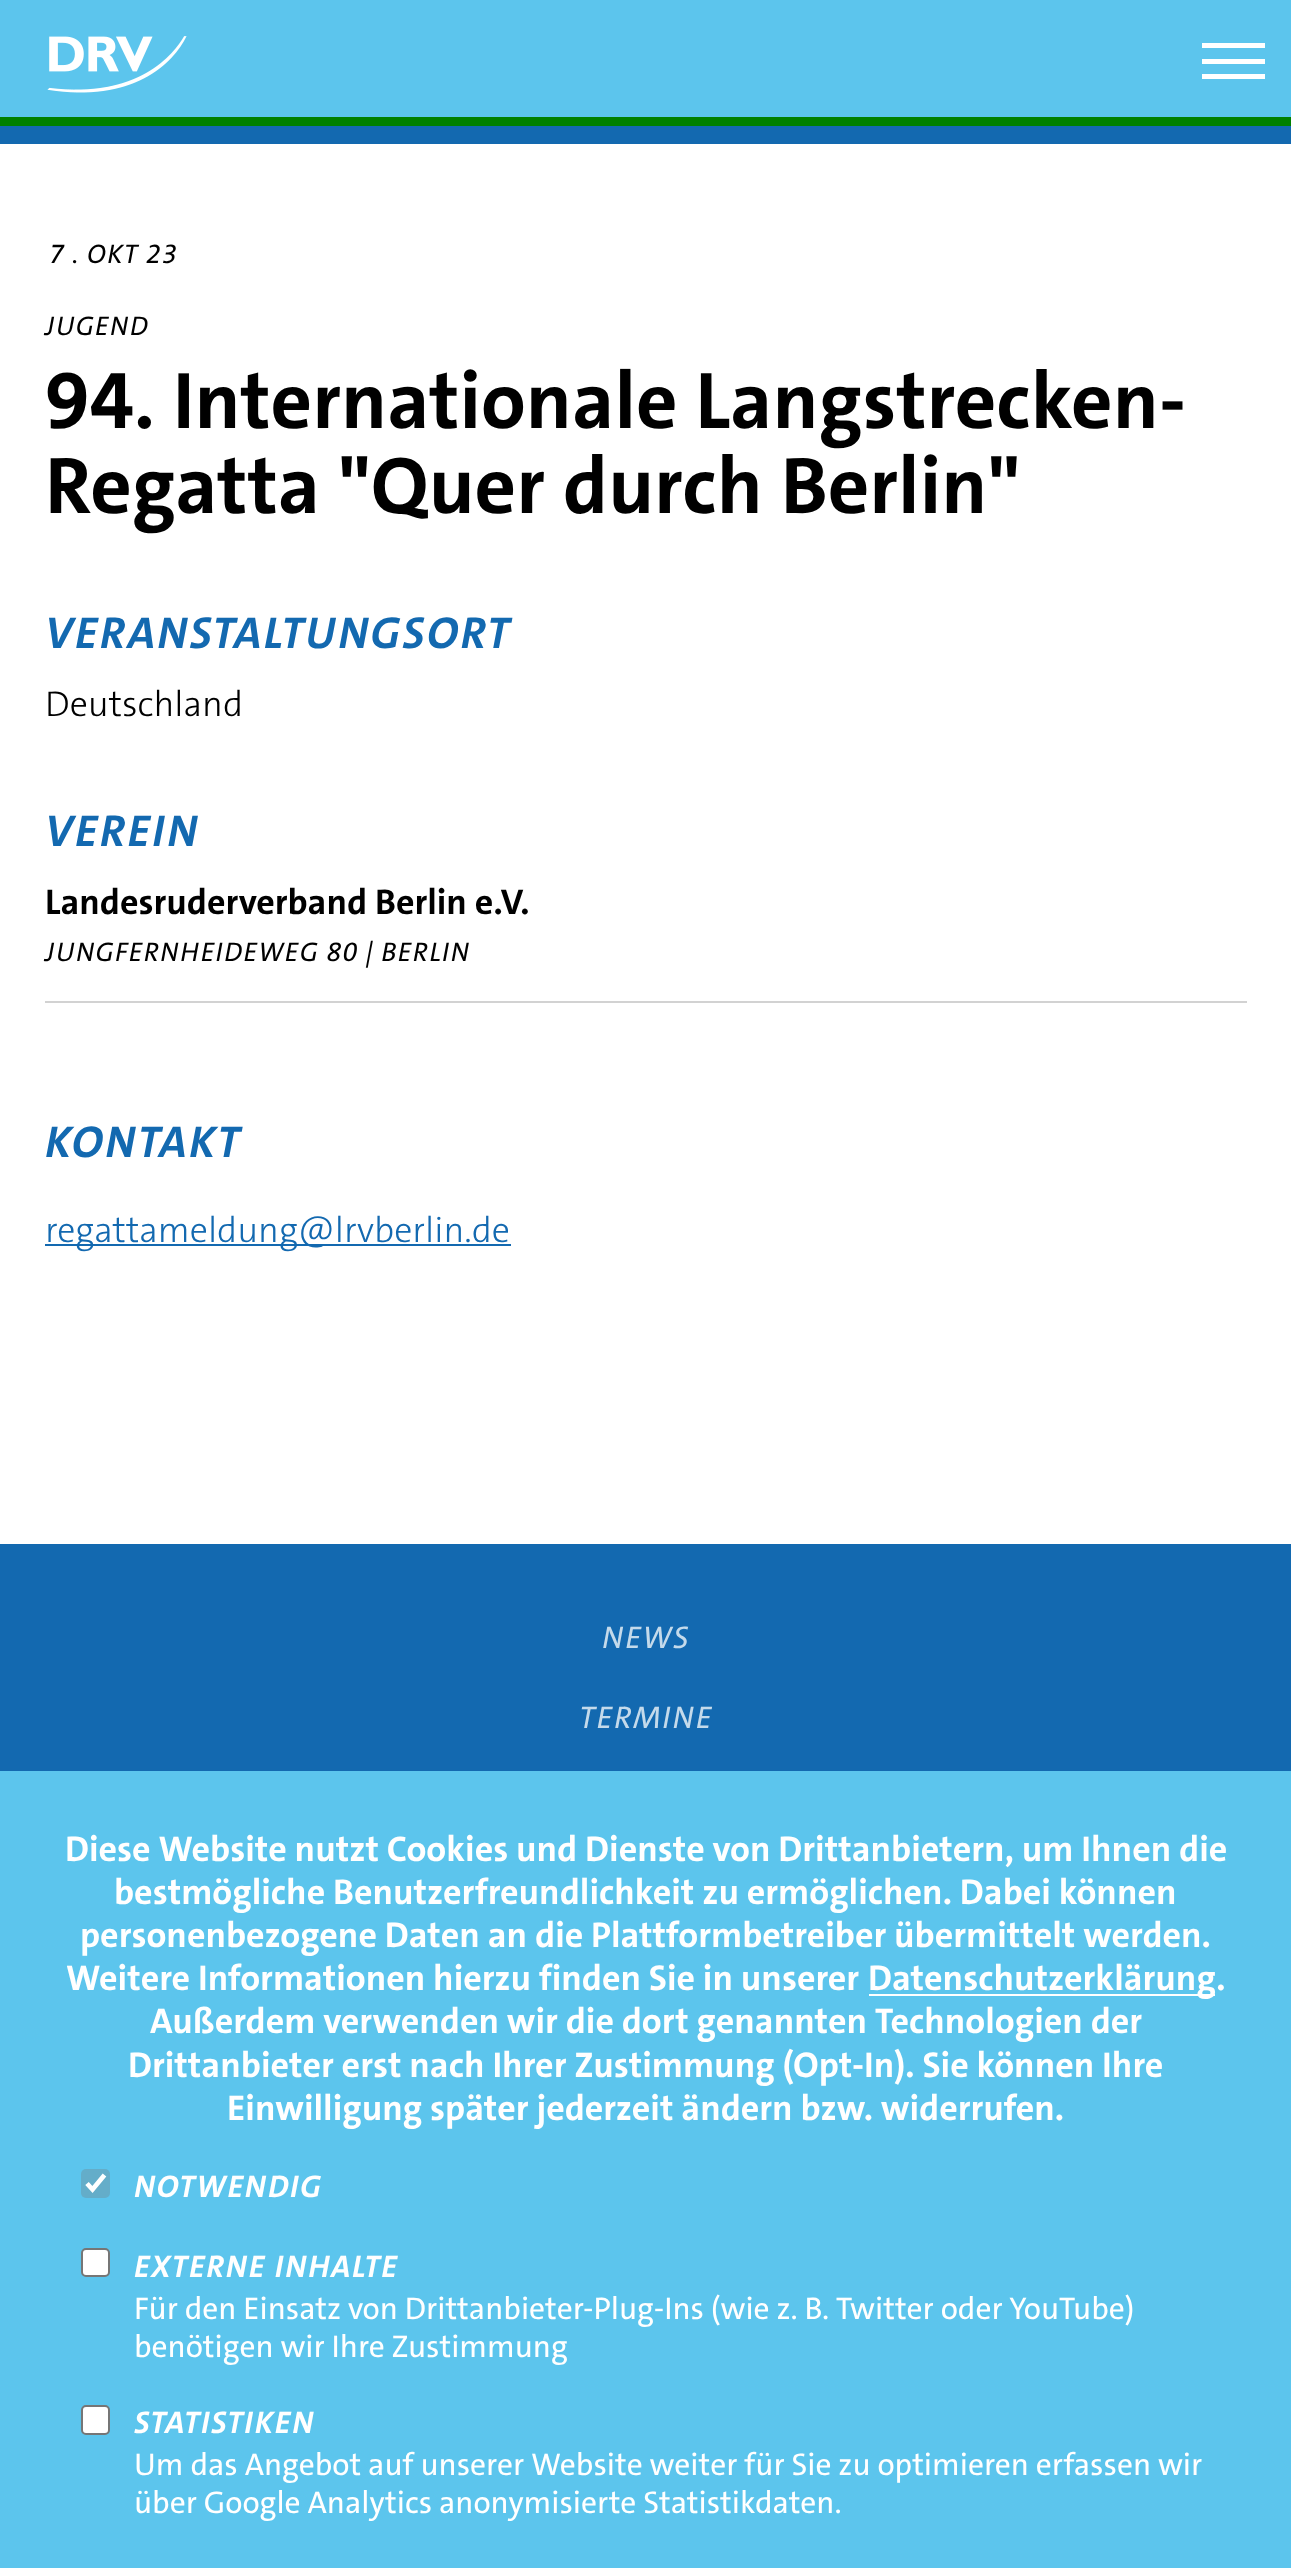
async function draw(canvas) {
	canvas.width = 1291;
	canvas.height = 2568;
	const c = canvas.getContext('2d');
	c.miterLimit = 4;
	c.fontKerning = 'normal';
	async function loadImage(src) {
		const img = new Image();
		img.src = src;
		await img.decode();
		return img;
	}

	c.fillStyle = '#fff';
	c.fillRect(0, 0, 1291, 2568);
	c.fillStyle = '#5cc5ed';
	c.fillRect(0, 0, 1291, 117);
	c.drawImage(await loadImage('img1.png'), 47, 36, 140, 57);
	for (const [x, y, w, h, color] of [
		[1202, 43, 63, 5, '#fff'],
		[1202, 59, 63, 5, '#fff'],
		[1202, 74, 63, 5, '#fff'],
		[0, 117, 1291, 9, '#008000'],
		[0, 126, 1291, 18, '#1369b0'],
	]) {
		c.fillStyle = color;
		c.fillRect(x, y, w, h);
	}
	c.letterSpacing = '1.35px';
	c.font = 'italic 500 27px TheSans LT';
	c.fillStyle = '#000';
	c.fillText('7 . OKT 23', 49, 263);
	c.fillText('JUGEND', 45, 335);
	c.letterSpacing = '0px';
	c.font = 'bold 81px TheSans LT';
	c.fillText('94. Internationale Langstrecken-', 45, 428);
	c.fillText('Regatta "Quer durch Berlin"', 45, 513);
	c.letterSpacing = '2.25px';
	c.font = 'italic bold 45px TheSans LT';
	c.fillStyle = '#1369b0';
	c.fillText('VERANSTALTUNGSORT', 45, 648);
	c.letterSpacing = '0px';
	c.font = '300 36px TheSans LT';
	c.fillStyle = '#000';
	c.fillText('Deutschland', 45, 716);
	c.letterSpacing = '2.25px';
	c.font = 'italic bold 45px TheSans LT';
	c.fillStyle = '#1369b0';
	c.fillText('VEREIN', 45, 846);
	c.letterSpacing = '0px';
	c.font = 'bold 36px TheSans LT';
	c.fillStyle = '#000';
	c.fillText('Landesruderverband Berlin e.V.', 45, 914);
	c.letterSpacing = '1.35px';
	c.font = 'italic 500 27px TheSans LT';
	c.fillText('JUNGFERNHEIDEWEG 80 | BERLIN', 45, 961);
	c.fillStyle = '#d2d2d2';
	c.fillRect(45, 1001, 1202, 2);
	c.letterSpacing = '2.25px';
	c.font = 'italic bold 45px TheSans LT';
	c.fillStyle = '#1369b0';
	c.fillText('KONTAKT', 45, 1157);
	c.fillRect(45, 1244, 466, 2);
	c.letterSpacing = '0px';
	c.font = '300 36px TheSans LT';
	c.fillText('regattameldung@lrvberlin.de', 45, 1242);
	c.fillRect(0, 1544, 1291, 227);
	c.letterSpacing = '1.6px';
	c.font = 'italic 500 31.5px TheSans LT';
	c.fillStyle = '#c4daeb';
	c.fillText('NEWS', 602, 1648);
	c.fillText('TERMINE', 579, 1728);
	c.fillStyle = '#5cc5ed';
	c.fillRect(0, 1771, 1291, 797);
	c.letterSpacing = '0px';
	c.font = 'bold 36px TheSans LT';
	c.fillStyle = '#fff';
	for (const [text, x, y] of [
		['Diese Website nutzt Cookies und Dienste von Drittanbietern, um Ihnen die', 65, 1861],
		['bestmögliche Benutzerfreundlichkeit zu ermöglichen. Dabei können', 114, 1904],
		['personenbezogene Daten an die Plattformbetreiber übermittelt werden.', 80, 1947],
		['Weitere Informationen hierzu finden Sie in unserer', 66, 1990],
	]) {
		c.fillText(text, x, y);
	}
	c.fillRect(869, 1994, 346, 2);
	for (const [text, x, y] of [
		['Datenschutzerklärung.', 868, 1990],
		['Außerdem verwenden wir die dort genannten Technologien der', 150, 2033],
		['Drittanbieter erst nach Ihrer Zustimmung (Opt-In). Sie können Ihre', 128, 2077],
		['Einwilligung später jederzeit ändern bzw. widerrufen.', 227, 2120],
	]) {
		c.fillText(text, x, y);
	}
	c.fillStyle = '#64adc9';
	c.beginPath();
	c.roundRect(81, 2169, 29, 29, 5);
	c.fill();
	c.beginPath();
	c.moveTo(87, 2183.5);
	c.lineTo(92.5, 2189.5);
	c.lineTo(104.5, 2175);
	c.strokeStyle = '#fff';
	c.lineWidth = 4.7;
	c.stroke();
	c.letterSpacing = '1.6px';
	c.font = 'italic bold 31.5px TheSans LT';
	c.fillStyle = '#fff';
	c.fillText('NOTWENDIG', 134, 2197);
	c.beginPath();
	c.roundRect(82, 2249, 27, 27, 4);
	c.fill();
	c.strokeStyle = '#767676';
	c.lineWidth = 2;
	c.stroke();
	c.fillText('EXTERNE INHALTE', 134, 2277);
	c.letterSpacing = '0px';
	c.font = '31.5px TheSans LT';
	c.fillText('Für den Einsatz von Drittanbieter-Plug-Ins (wie z. B. Twitter oder YouTube)', 134, 2319);
	c.fillText('benötigen wir Ihre Zustimmung', 134, 2357);
	c.beginPath();
	c.roundRect(82, 2406, 27, 28, 4);
	c.fill();
	c.stroke();
	c.letterSpacing = '1.6px';
	c.font = 'italic bold 31.5px TheSans LT';
	c.fillText('STATISTIKEN', 134, 2433);
	c.letterSpacing = '0px';
	c.font = '31.5px TheSans LT';
	c.fillText('Um das Angebot auf unserer Website weiter für Sie zu optimieren erfassen wir', 134, 2475);
	c.fillText('über Google Analytics anonymisierte Statistikdaten.', 134, 2513);
}

draw(document.querySelector('canvas'));
